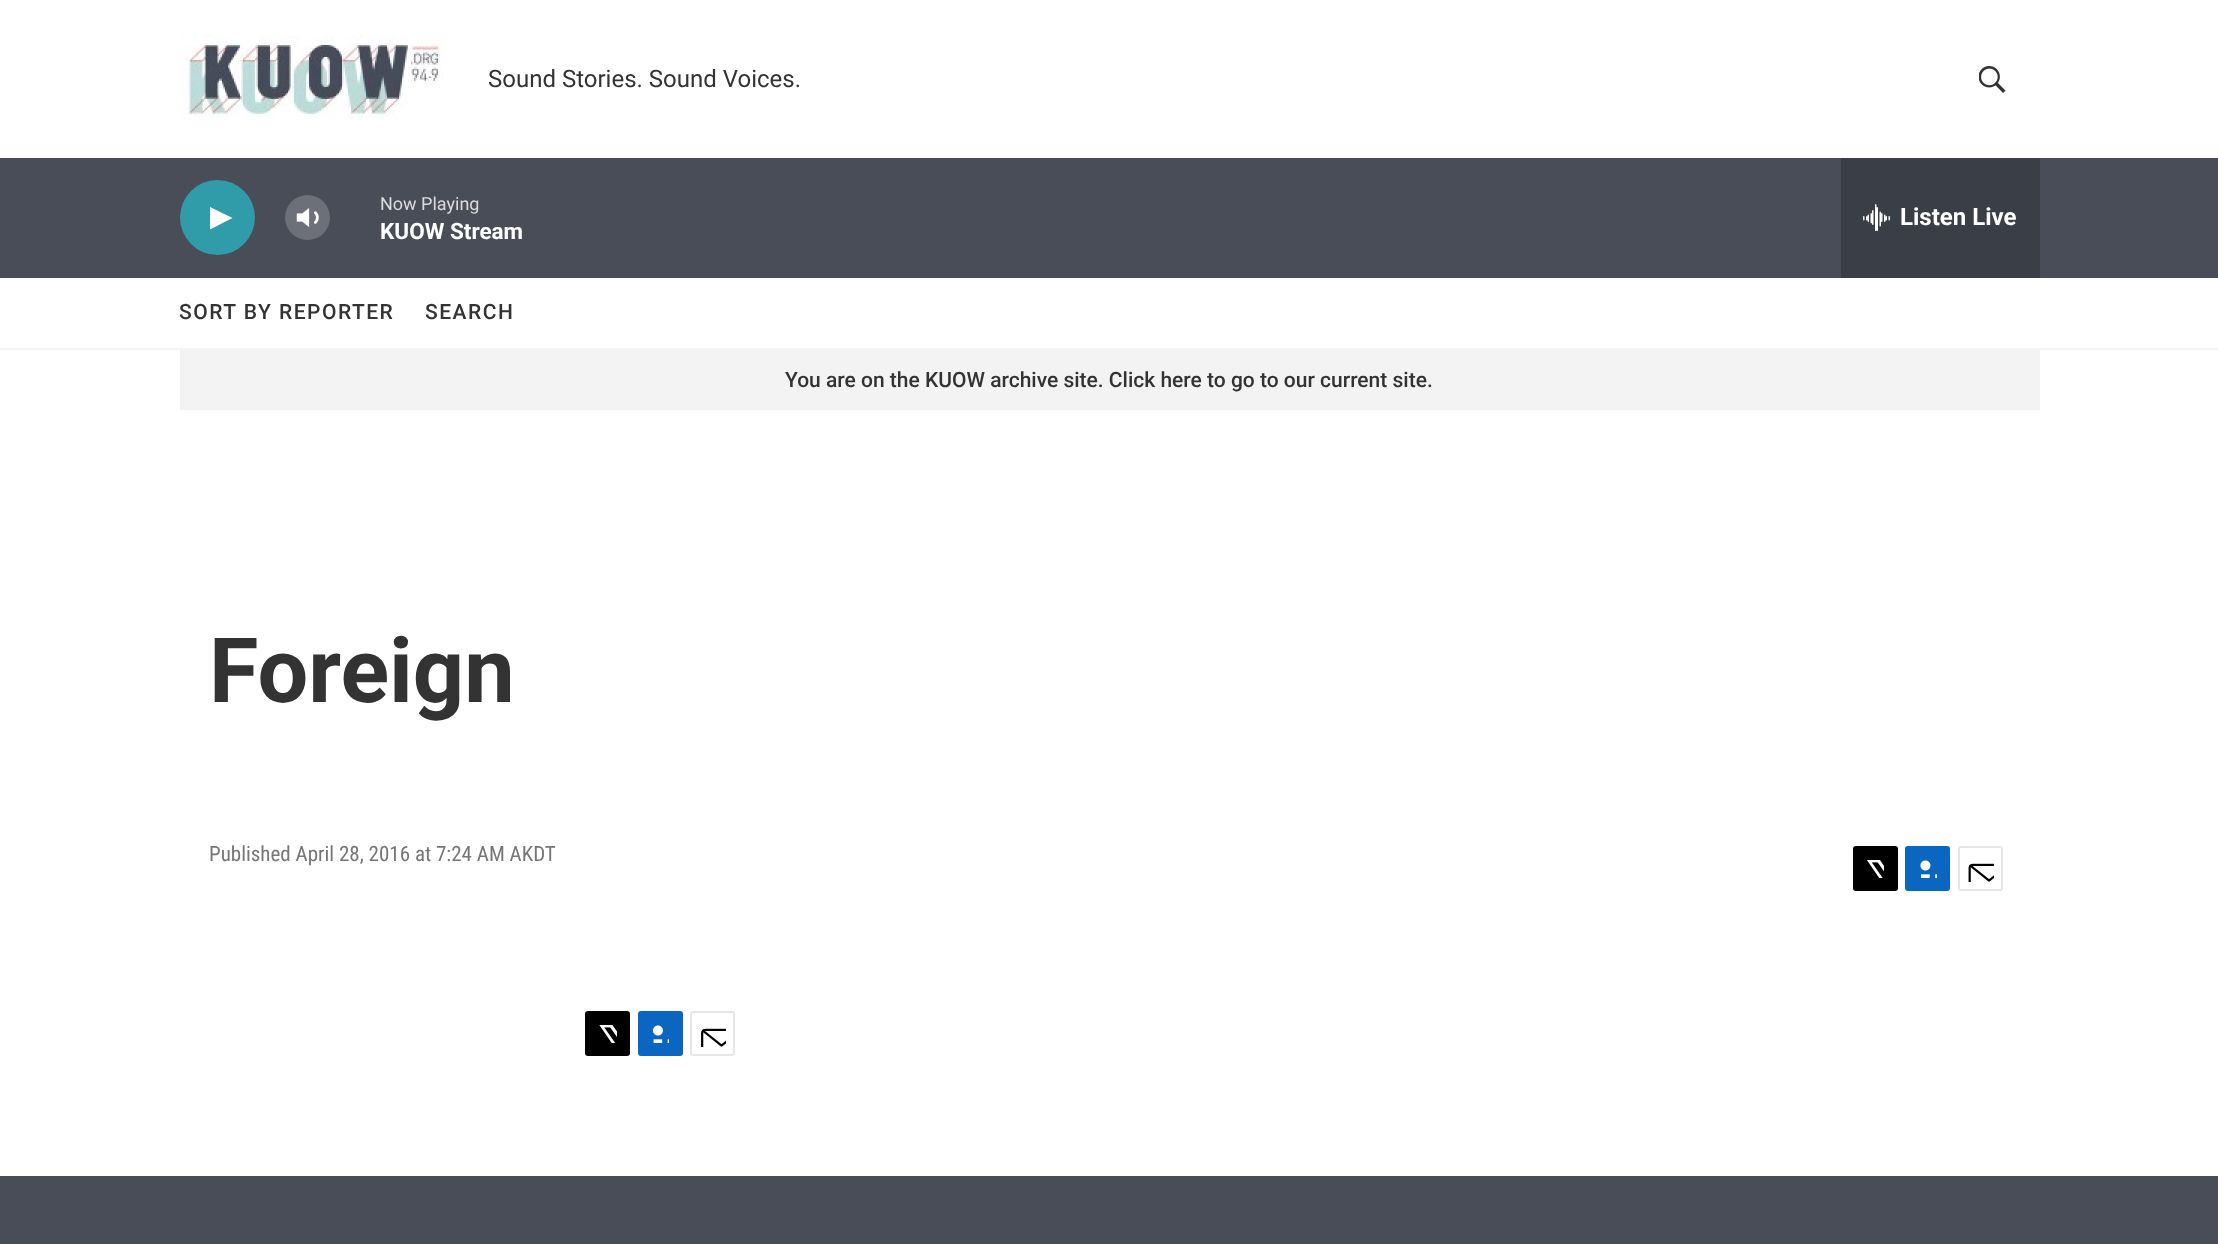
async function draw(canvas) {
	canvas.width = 2218;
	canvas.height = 1244;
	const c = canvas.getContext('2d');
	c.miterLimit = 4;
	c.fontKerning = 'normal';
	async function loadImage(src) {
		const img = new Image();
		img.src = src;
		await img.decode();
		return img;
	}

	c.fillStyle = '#fff';
	c.fillRect(0, 0, 2218, 1244);
	c.fillStyle = '#f5f5f5';
	c.fillRect(0, 348, 2218, 2);
	c.drawImage(await loadImage('img1.png'), 180, 35, 264, 85);
	c.font = '24px Roboto';
	c.fillStyle = '#333';
	c.fillText('Sound Stories. Sound Voices.', 488, 87);
	c.drawImage(await loadImage('img2.png'), 1979, 66, 27, 27);
	c.fillStyle = '#494d58';
	c.fillRect(0, 158, 2218, 120);
	c.fillStyle = '#309ca9';
	c.beginPath();
	c.arc(217.5, 217.5, 37.5, 0, 2 * Math.PI);
	c.fill();
	c.fillStyle = '#fff';
	c.beginPath();
	c.moveTo(210, 207);
	c.lineTo(232.5, 218);
	c.lineTo(210, 229.5);
	c.closePath();
	c.fill();
	c.drawImage(await loadImage('img3.png'), 296, 208, 23, 19);
	c.fillStyle = '#ffffff33';
	c.beginPath();
	c.arc(307.5, 217.5, 22.5, 0, 2 * Math.PI);
	c.fill();
	c.font = '18px Roboto';
	c.fillStyle = '#dbdbde';
	c.fillText('Now Playing', 380, 210);
	c.font = 'bold 22.5px "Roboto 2"';
	c.fillStyle = '#fff';
	c.fillText('KUOW Stream', 380, 239);
	c.fillStyle = '#3a3e46';
	c.fillRect(1841, 158, 199, 120);
	c.drawImage(await loadImage('img4.png'), 1863, 204, 27, 27);
	c.font = 'bold 24px "Roboto 2"';
	c.fillStyle = '#fff';
	c.fillText('Listen Live', 1900, 225);
	c.letterSpacing = '1.5px';
	c.font = '500 21px Roboto';
	c.fillStyle = '#333';
	c.fillText('SORT BY REPORTER', 179, 319);
	c.fillText('SEARCH', 425, 319);
	c.fillStyle = '#f3f3f3';
	c.fillRect(180, 350, 1860, 60);
	c.letterSpacing = '0px';
	c.fillStyle = '#333';
	c.fillText('You are on the KUOW archive site. Click here to go to our current site.', 785, 387);
	c.font = 'bold 90px Roboto';
	c.fillText('Foreign', 209, 702);
	c.font = '21px Roboto Condensed';
	c.fillStyle = '#767676';
	c.fillText('Published April 28, 2016 at 7:24 AM AKDT', 209, 861);
	c.fillStyle = '#000';
	c.beginPath();
	c.roundRect(1853, 846, 45, 45, 3);
	c.fill();
	c.drawImage(await loadImage('img5.png'), 1867, 860, 17, 18);
	c.fillStyle = '#0a66c1';
	c.beginPath();
	c.roundRect(1905, 846, 45, 45, 3);
	c.fill();
	c.drawImage(await loadImage('img6.png'), 1920, 860, 17, 18);
	c.beginPath();
	c.roundRect(1959, 847, 43, 43, 2);
	c.strokeStyle = '#e6e6e6';
	c.lineWidth = 2;
	c.stroke();
	c.drawImage(await loadImage('img7.png'), 1968, 863, 26, 19);
	c.fillStyle = '#000';
	c.beginPath();
	c.roundRect(585, 1011, 45, 45, 3);
	c.fill();
	c.drawImage(await loadImage('img8.png'), 599, 1025, 18, 18);
	c.fillStyle = '#0a66c1';
	c.beginPath();
	c.roundRect(638, 1011, 45, 45, 3);
	c.fill();
	c.drawImage(await loadImage('img9.png'), 652, 1025, 17, 18);
	c.beginPath();
	c.roundRect(691, 1012, 43, 43, 2);
	c.stroke();
	c.drawImage(await loadImage('img10.png'), 701, 1028, 25, 19);
	c.fillStyle = '#494d58';
	c.fillRect(0, 1176, 2218, 68);
}

draw(document.querySelector('canvas'));
